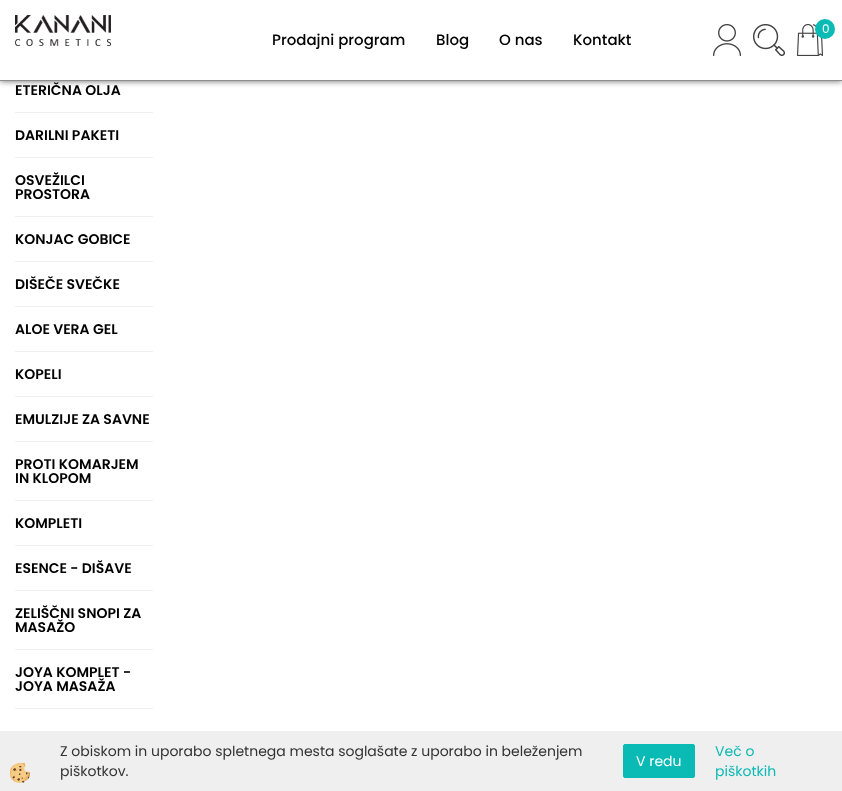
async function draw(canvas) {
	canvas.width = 842;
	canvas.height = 791;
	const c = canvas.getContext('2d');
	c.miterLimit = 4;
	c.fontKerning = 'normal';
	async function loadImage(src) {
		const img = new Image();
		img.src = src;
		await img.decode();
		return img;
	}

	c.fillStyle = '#fff';
	c.fillRect(0, 0, 842, 791);
	c.fillStyle = '#00000099';
	c.filter = 'blur(3px)';
	c.beginPath();
	c.rect(0, 0, 842, 81);
	c.fill();
	c.filter = 'none';
	c.fillStyle = '#fff';
	c.fillRect(0, 0, 842, 80);
	c.fillStyle = '#8d8d8d';
	c.fillRect(0, 80, 842, 1);
	c.drawImage(await loadImage('img1.png'), 15, 15, 96, 31);
	c.drawImage(await loadImage('img2.png'), 713, 24, 28, 32);
	c.drawImage(await loadImage('img3.png'), 753, 24, 32, 32);
	c.drawImage(await loadImage('img4.png'), 797, 24, 26, 32);
	c.fillStyle = '#0abab5';
	c.beginPath();
	c.arc(825, 29, 10, 0, 2 * Math.PI);
	c.fill();
	c.font = '12px Poppins';
	c.fillStyle = '#fff';
	c.fillText('0', 822, 33);
	c.font = '500 15px Poppins';
	c.fillStyle = '#000';
	for (const [text, x, y] of [
		['Prodajni program', 272, 45],
		['Blog', 436, 45],
		['O nas', 499, 45],
		['Kontakt', 573, 45],
	]) {
		c.fillText(text, x, y);
	}
	c.fillStyle = '#efefef';
	c.fillRect(15, 112, 138, 1);
	c.font = '600 14px Poppins';
	c.fillStyle = '#000';
	c.fillText('ETERIČNA OLJA', 15, 95);
	c.fillStyle = '#efefef';
	c.fillRect(15, 157, 138, 1);
	c.fillStyle = '#000';
	c.fillText('DARILNI PAKETI', 15, 140);
	c.fillStyle = '#efefef';
	c.fillRect(15, 216, 138, 1);
	c.fillStyle = '#000';
	c.fillText('OSVEŽILCI', 15, 185);
	c.fillText('PROSTORA', 15, 199);
	c.fillStyle = '#efefef';
	c.fillRect(15, 261, 138, 1);
	c.fillStyle = '#000';
	c.fillText('KONJAC GOBICE', 15, 244);
	c.fillStyle = '#efefef';
	c.fillRect(15, 306, 138, 1);
	c.fillStyle = '#000';
	c.fillText('DIŠEČE SVEČKE', 15, 289);
	c.fillStyle = '#efefef';
	c.fillRect(15, 351, 138, 1);
	c.fillStyle = '#000';
	c.fillText('ALOE VERA GEL', 15, 334);
	c.fillStyle = '#efefef';
	c.fillRect(15, 396, 138, 1);
	c.fillStyle = '#000';
	c.fillText('KOPELI', 15, 379);
	c.fillStyle = '#efefef';
	c.fillRect(15, 441, 138, 1);
	c.fillStyle = '#000';
	c.fillText('EMULZIJE ZA SAVNE', 15, 424);
	c.fillStyle = '#efefef';
	c.fillRect(15, 500, 138, 1);
	c.fillStyle = '#000';
	c.fillText('PROTI KOMARJEM', 15, 469);
	c.fillText('IN KLOPOM', 15, 483);
	c.fillStyle = '#efefef';
	c.fillRect(15, 545, 138, 1);
	c.fillStyle = '#000';
	c.fillText('KOMPLETI', 15, 528);
	c.fillStyle = '#efefef';
	c.fillRect(15, 590, 138, 1);
	c.fillStyle = '#000';
	c.fillText('ESENCE - DIŠAVE', 15, 573);
	c.fillStyle = '#efefef';
	c.fillRect(15, 649, 138, 1);
	c.fillStyle = '#000';
	c.fillText('ZELIŠČNI SNOPI ZA', 15, 618);
	c.fillText('MASAŽO', 15, 632);
	c.fillStyle = '#efefef';
	c.fillRect(15, 708, 138, 1);
	c.fillStyle = '#000';
	c.fillText('JOYA KOMPLET -', 15, 677);
	c.fillText('JOYA MASAŽA', 15, 691);
	c.fillStyle = '#efefef';
	c.fillRect(0, 731, 842, 60);
	c.drawImage(await loadImage('img5.png'), 10, 763, 20, 20);
	c.font = '14px Poppins';
	c.fillStyle = '#333';
	c.fillText('Z obiskom in uporabo spletnega mesta soglašate z uporabo in beleženjem', 60, 756);
	c.fillStyle = '#0abab5';
	c.beginPath();
	c.roundRect(623.5, 744.5, 71, 33, 1.5);
	c.fill();
	c.strokeStyle = '#0abab5';
	c.stroke();
	c.fillStyle = '#fff';
	c.fillText('V redu', 636, 766);
	c.fillStyle = '#0abab5';
	c.fillText('Več o', 715, 756);
	c.fillText('piškotkih', 715, 776);
	c.fillStyle = '#333';
	c.fillText('piškotkov.', 60, 776);
}

draw(document.querySelector('canvas'));
